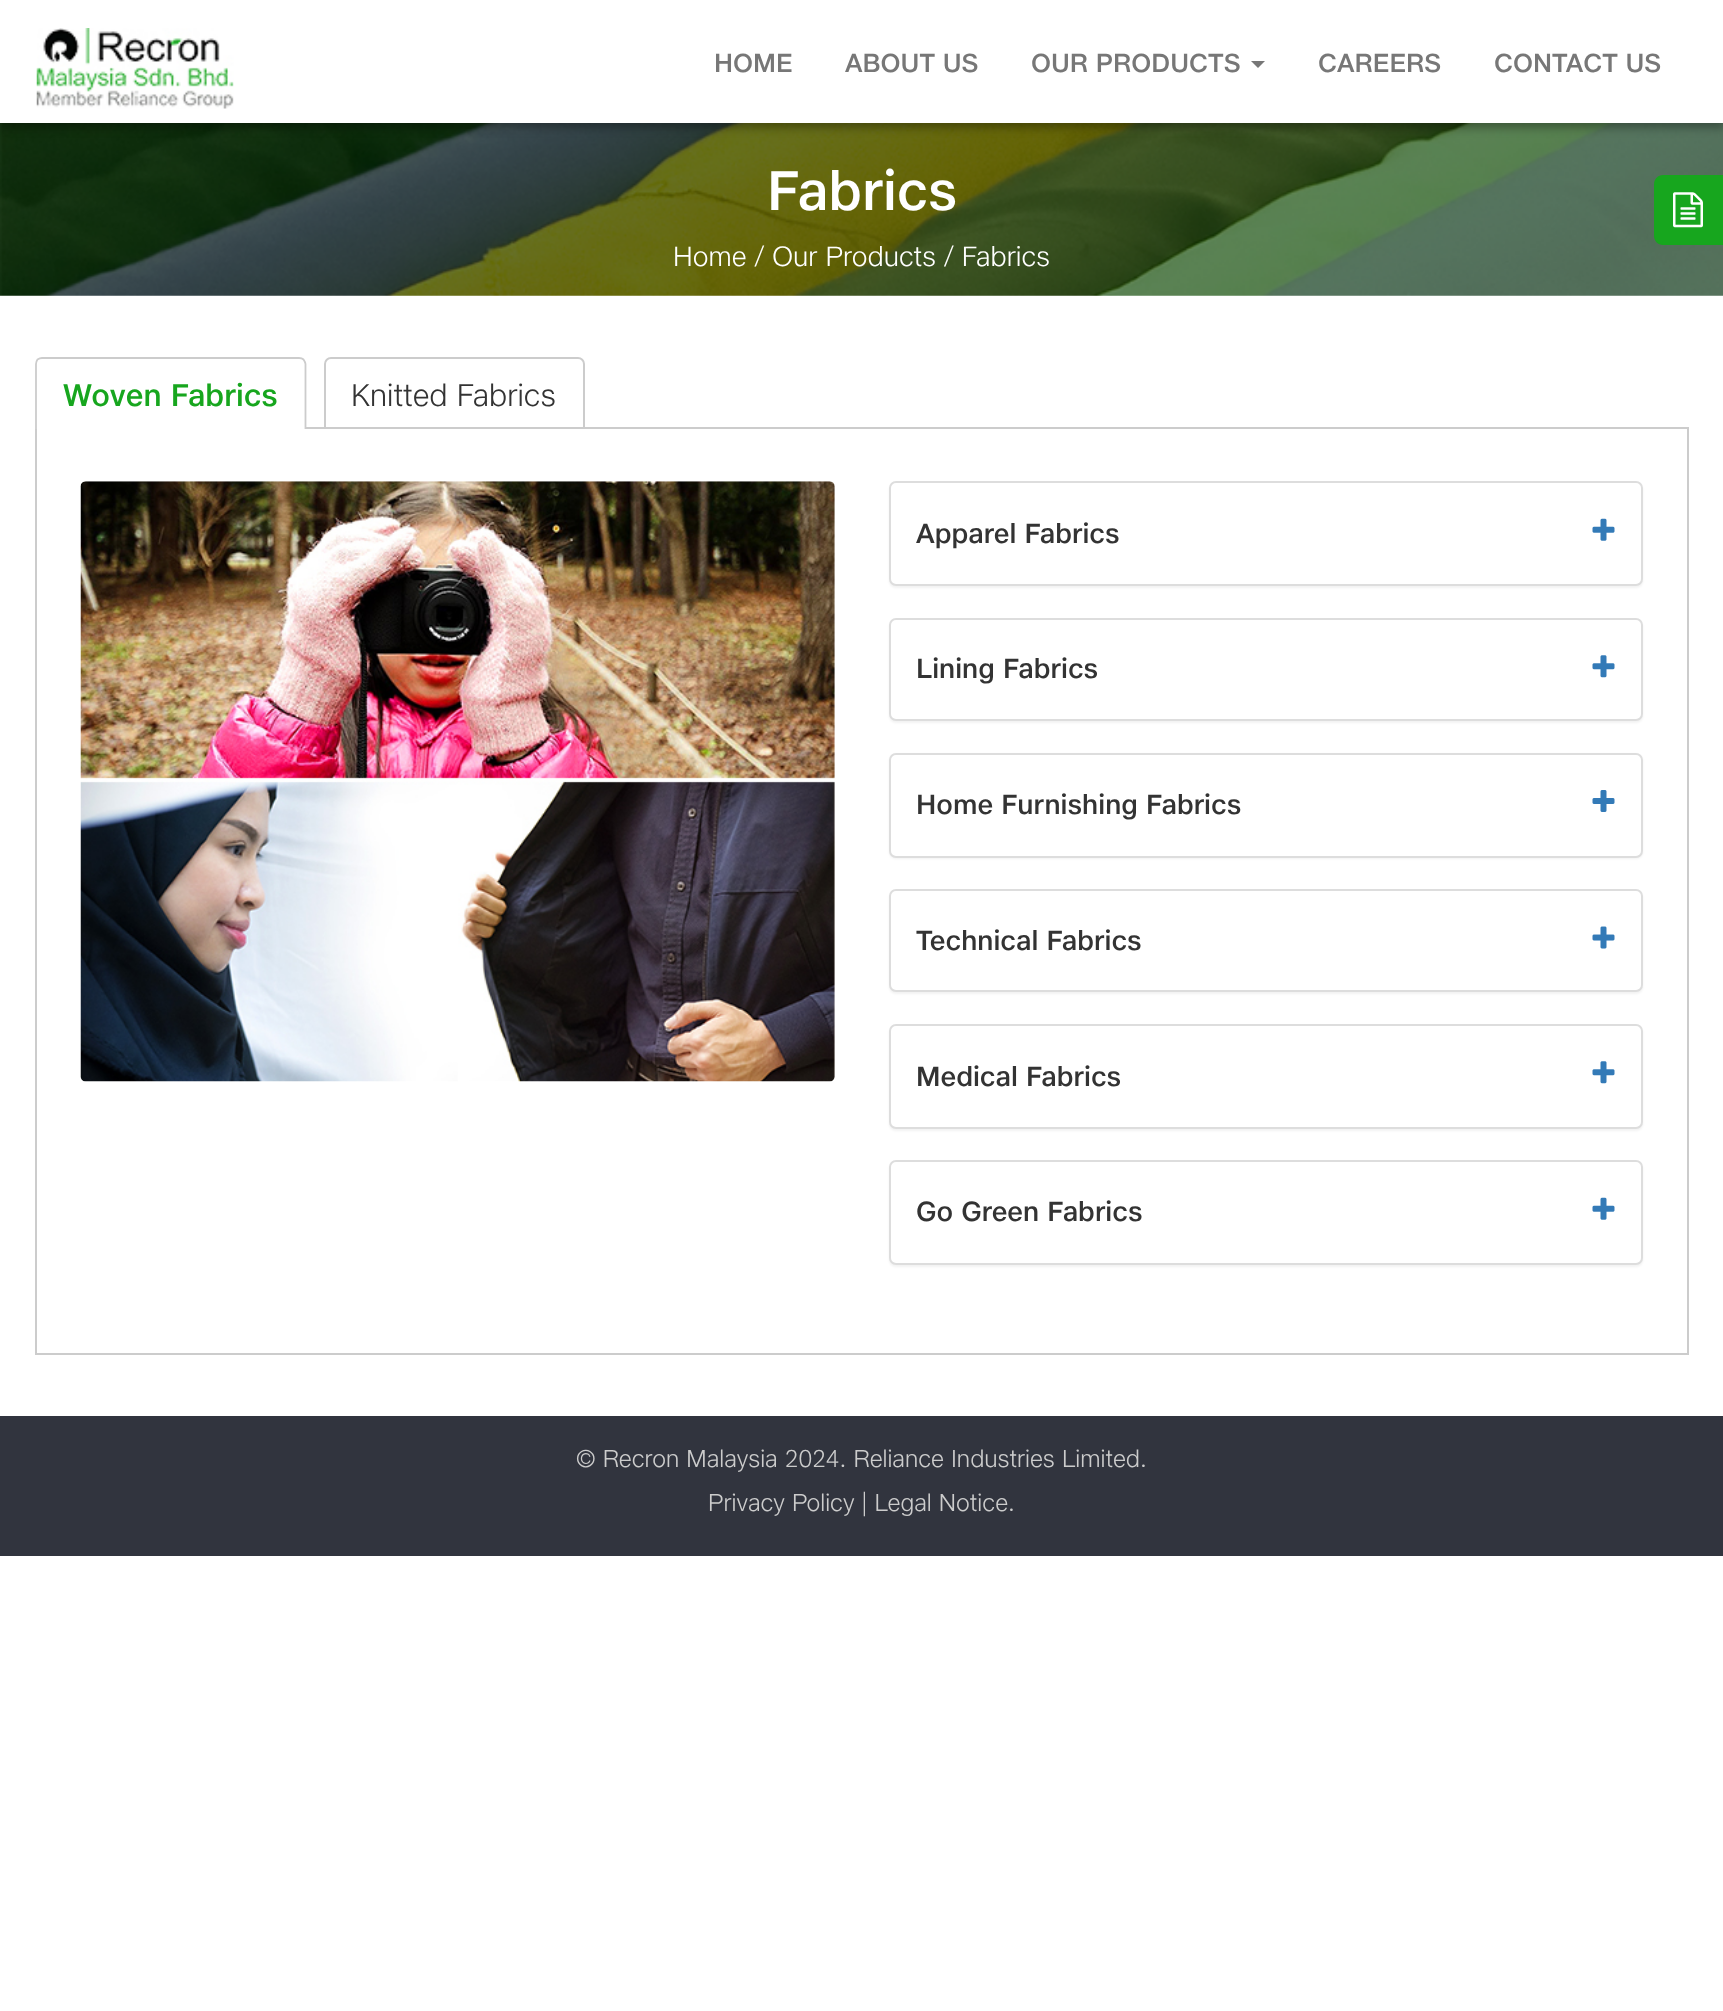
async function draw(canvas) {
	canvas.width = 1723;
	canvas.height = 2011;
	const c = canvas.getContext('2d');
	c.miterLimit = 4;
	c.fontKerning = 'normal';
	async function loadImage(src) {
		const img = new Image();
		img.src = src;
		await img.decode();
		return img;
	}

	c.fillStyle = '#fff';
	c.fillRect(0, 0, 1723, 2011);
	c.drawImage(await loadImage('img3.png'), 0, 123, 1723, 173);
	c.fillStyle = '#0000004f';
	c.filter = 'blur(4.5px)';
	c.beginPath();
	c.rect(0, 5, 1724, 123);
	c.fill();
	c.filter = 'none';
	c.fillStyle = '#fff';
	c.fillRect(0, 0, 1723, 123);
	c.drawImage(await loadImage('img1.png'), 36, 28, 198, 81);
	c.font = '500 26.25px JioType';
	c.fillStyle = '#777';
	for (const [text, x, y] of [
		['HOME', 714, 72],
		['ABOUT US', 845, 72],
		['OUR PRODUCTS', 1031, 72],
	]) {
		c.fillText(text, x, y);
	}
	c.beginPath();
	c.moveTo(1251, 61);
	c.lineTo(1265, 61);
	c.lineTo(1258, 68);
	c.closePath();
	c.fill();
	c.fillText('CAREERS', 1318, 72);
	c.fillText('CONTACT US', 1494, 72);
	c.fillStyle = '#17a61e';
	c.beginPath();
	c.moveTo(1663, 175);
	c.lineTo(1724, 175);
	c.lineTo(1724, 245);
	c.lineTo(1663, 245);
	c.bezierCurveTo(1658, 245, 1654, 241, 1654, 236);
	c.lineTo(1654, 184);
	c.bezierCurveTo(1654, 179, 1658, 175, 1663, 175);
	c.closePath();
	c.fill();
	c.drawImage(await loadImage('img2.png'), 1673, 192, 30, 36);
	c.font = '500 56px JioType';
	c.fillStyle = '#fff';
	c.fillText('Fabrics', 767, 210);
	c.font = '300 28px JioType';
	c.fillText('Home / Our Products / Fabrics', 673, 266);
	c.fillStyle = '#ccc';
	c.fillRect(306, 427, 1383, 2);
	c.beginPath();
	c.moveTo(37.5, 433);
	c.bezierCurveTo(36.5, 432, 36, 430.5, 36, 429);
	c.lineTo(36, 364);
	c.bezierCurveTo(36, 362.5, 36.5, 361, 37.5, 359.5);
	c.bezierCurveTo(39, 358.5, 40.5, 358, 42, 358);
	c.lineTo(299, 358);
	c.bezierCurveTo(301, 358, 302.5, 358.5, 303.5, 359.5);
	c.bezierCurveTo(304.5, 361, 305.5, 362.5, 305.5, 364);
	c.lineTo(305.5, 429);
	c.bezierCurveTo(305.5, 430.5, 304.5, 432, 303.5, 433);
	c.strokeStyle = '#ccc';
	c.lineWidth = 1.8;
	c.stroke();
	c.font = '500 31.5px JioType';
	c.fillStyle = '#17a61e';
	c.fillText('Woven Fabrics', 63, 406);
	c.beginPath();
	c.roundRect(325, 358, 259, 77, 6);
	c.lineWidth = 2;
	c.stroke();
	c.font = '300 31.5px JioType';
	c.fillStyle = '#333';
	c.fillText('Knitted Fabrics', 351, 406);
	for (const [x, y, w, h, color] of [
		[37, 429, 548, 7, '#fff'],
		[1687, 429, 2, 926, '#ccc'],
		[35, 1353, 1654, 2, '#ccc'],
		[35, 429, 2, 926, '#ccc'],
	]) {
		c.fillStyle = color;
		c.fillRect(x, y, w, h);
	}
	c.drawImage(await loadImage('img4.png'), 80, 481, 755, 601);
	c.fillStyle = '#0000000d';
	c.filter = 'blur(1px)';
	c.beginPath();
	c.roundRect(889, 483, 754, 105, 7);
	c.fill();
	c.filter = 'none';
	c.fillStyle = '#fff';
	c.beginPath();
	c.roundRect(890, 482, 752, 103, 6);
	c.fill();
	c.strokeStyle = '#ddd';
	c.stroke();
	c.font = '500 28px JioType';
	c.fillStyle = '#333';
	c.fillText('Apparel Fabrics', 916, 543);
	c.drawImage(await loadImage('img5.png'), 1592, 518, 23, 23);
	c.fillStyle = '#0000000d';
	c.filter = 'blur(1px)';
	c.beginPath();
	c.roundRect(889, 620, 754, 103, 7);
	c.fill();
	c.filter = 'none';
	c.fillStyle = '#fff';
	c.beginPath();
	c.roundRect(890, 619, 752, 101, 6);
	c.fill();
	c.stroke();
	c.fillStyle = '#333';
	c.fillText('Lining Fabrics', 916, 678);
	c.drawImage(await loadImage('img6.png'), 1592, 655, 23, 23);
	c.fillStyle = '#0000000d';
	c.filter = 'blur(1px)';
	c.beginPath();
	c.roundRect(889, 754, 754, 105, 7);
	c.fill();
	c.filter = 'none';
	c.fillStyle = '#fff';
	c.beginPath();
	c.roundRect(890, 754, 752, 103, 6);
	c.fill();
	c.stroke();
	c.fillStyle = '#333';
	c.fillText('Home Furnishing Fabrics', 916, 814);
	c.drawImage(await loadImage('img7.png'), 1592, 790, 23, 22);
	c.fillStyle = '#0000000d';
	c.filter = 'blur(1px)';
	c.beginPath();
	c.roundRect(889, 891, 754, 103, 7);
	c.fill();
	c.filter = 'none';
	c.fillStyle = '#fff';
	c.beginPath();
	c.roundRect(890, 890, 752, 101, 6);
	c.fill();
	c.stroke();
	c.fillStyle = '#333';
	c.fillText('Technical Fabrics', 916, 950);
	c.drawImage(await loadImage('img8.png'), 1592, 926, 23, 23);
	c.fillStyle = '#0000000d';
	c.filter = 'blur(1px)';
	c.beginPath();
	c.roundRect(889, 1026, 754, 105, 7);
	c.fill();
	c.filter = 'none';
	c.fillStyle = '#fff';
	c.beginPath();
	c.roundRect(890, 1025, 752, 103, 6);
	c.fill();
	c.stroke();
	c.fillStyle = '#333';
	c.fillText('Medical Fabrics', 916, 1086);
	c.drawImage(await loadImage('img6.png'), 1592, 1061, 23, 23);
	c.fillStyle = '#0000000d';
	c.filter = 'blur(1px)';
	c.beginPath();
	c.roundRect(889, 1162, 754, 105, 7);
	c.fill();
	c.filter = 'none';
	c.fillStyle = '#fff';
	c.beginPath();
	c.roundRect(890, 1161, 752, 103, 6);
	c.fill();
	c.stroke();
	c.fillStyle = '#333';
	c.fillText('Go Green Fabrics', 916, 1221);
	c.drawImage(await loadImage('img5.png'), 1592, 1197, 23, 23);
	c.fillStyle = '#31343e';
	c.fillRect(0, 1416, 1723, 140);
	c.font = '300 24.5px JioType';
	c.fillStyle = '#ccc';
	c.fillText('© Recron Malaysia 2024. Reliance Industries Limited.', 576, 1467);
	c.fillText('Privacy Policy | Legal Notice.', 708, 1511);
}

draw(document.querySelector('canvas'));
